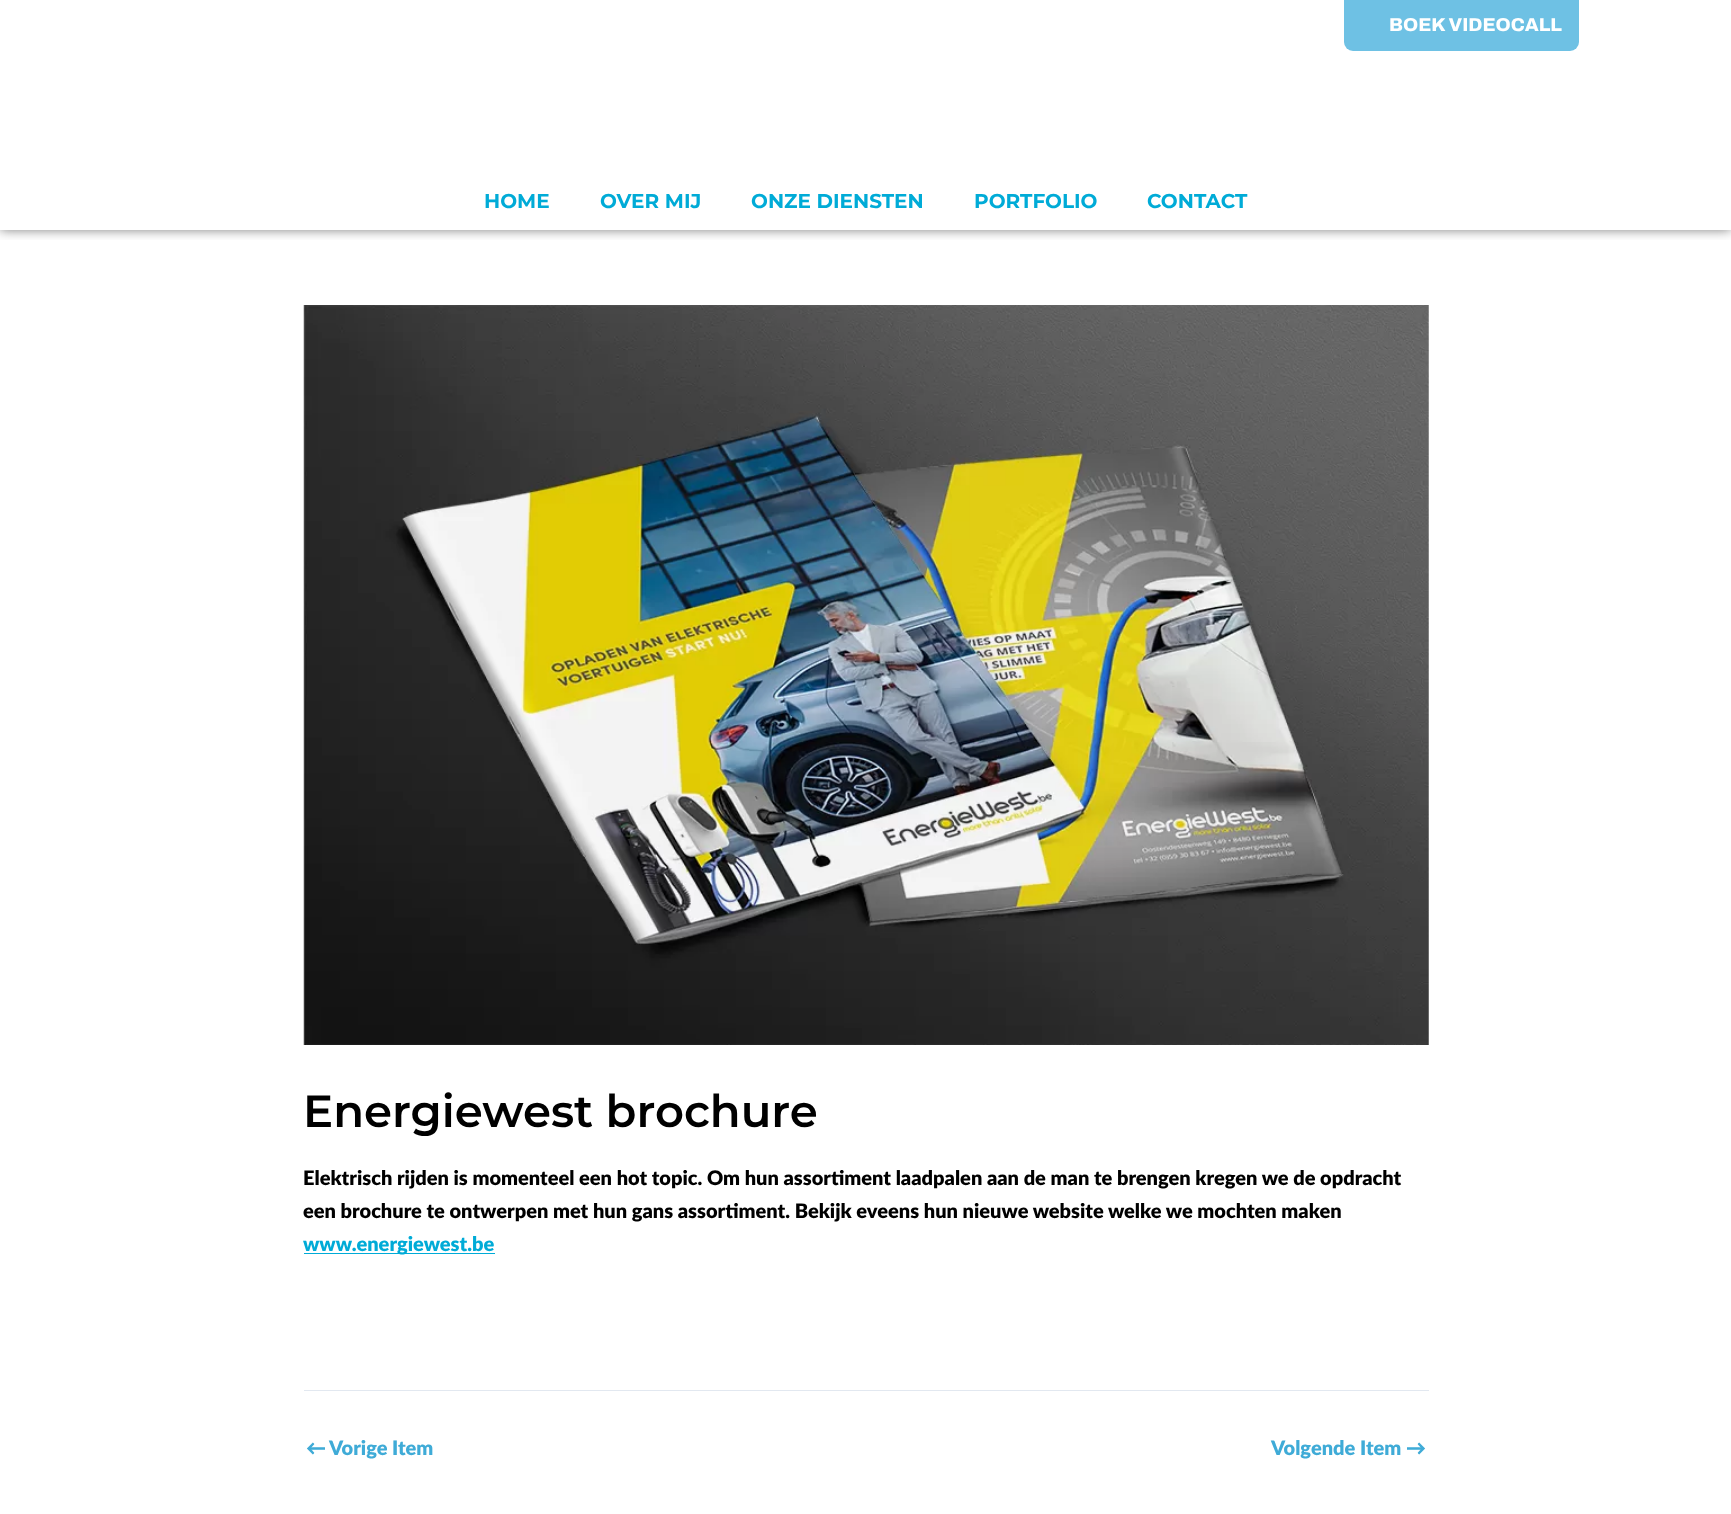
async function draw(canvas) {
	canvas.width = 1731;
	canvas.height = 1514;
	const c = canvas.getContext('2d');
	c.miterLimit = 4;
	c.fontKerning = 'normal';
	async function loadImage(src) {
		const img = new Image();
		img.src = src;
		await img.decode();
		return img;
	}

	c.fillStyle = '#fff';
	c.fillRect(0, 0, 1731, 1514);
	c.save();
	c.beginPath();
	c.rect(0, 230, 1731, 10);
	c.clip();
	c.fillStyle = '#00000080';
	c.filter = 'blur(6px)';
	c.beginPath();
	c.rect(0, 0, 1731, 230);
	c.fill();
	c.filter = 'none';
	c.restore();
	c.fillStyle = '#6ec1e4';
	c.beginPath();
	c.roundRect(1344, 0, 235, 51, [0, 0, 9, 9]);
	c.fill();
	c.font = '800 18.75px Archivo';
	c.fillStyle = '#fff';
	c.fillText('BOEK VIDEOCALL', 1389, 31);
	c.font = 'bold 20px Montserrat';
	c.fillStyle = '#00abd7';
	for (const [text, x, y] of [
		['HOME', 484, 208],
		['OVER MIJ', 600, 208],
		['ONZE DIENSTEN', 751, 208],
		['PORTFOLIO', 974, 208],
		['CONTACT', 1147, 208],
	]) {
		c.fillText(text, x, y);
	}
	c.drawImage(await loadImage('img1.png'), 303, 305, 1126, 740);
	c.font = '600 45px Montserrat';
	c.fillStyle = '#000';
	c.fillText('Energiewest brochure', 303, 1127);
	c.font = '800 20px Lato';
	c.fillText('Elektrisch rijden is momenteel een hot topic. Om hun assortiment laadpalen aan de man te brengen kregen we de opdracht', 303, 1185);
	c.fillText('een brochure te ontwerpen met hun gans assortiment. Bekijk eveens hun nieuwe website welke we mochten maken', 303, 1218);
	c.fillStyle = '#00abd7';
	c.fillRect(304, 1253, 191, 1);
	c.fillText('www.energiewest.be', 303, 1251);
	c.fillStyle = '#e2e8f0';
	c.fillRect(304, 1390, 1125, 1);
	c.fillStyle = '#3fabd7';
	for (const [text, x, y] of [
		['←', 306, 1455],
		['Vorige Item', 329, 1455],
		['Volgende Item →', 1271, 1455],
	]) {
		c.fillText(text, x, y);
	}
}

draw(document.querySelector('canvas'));
